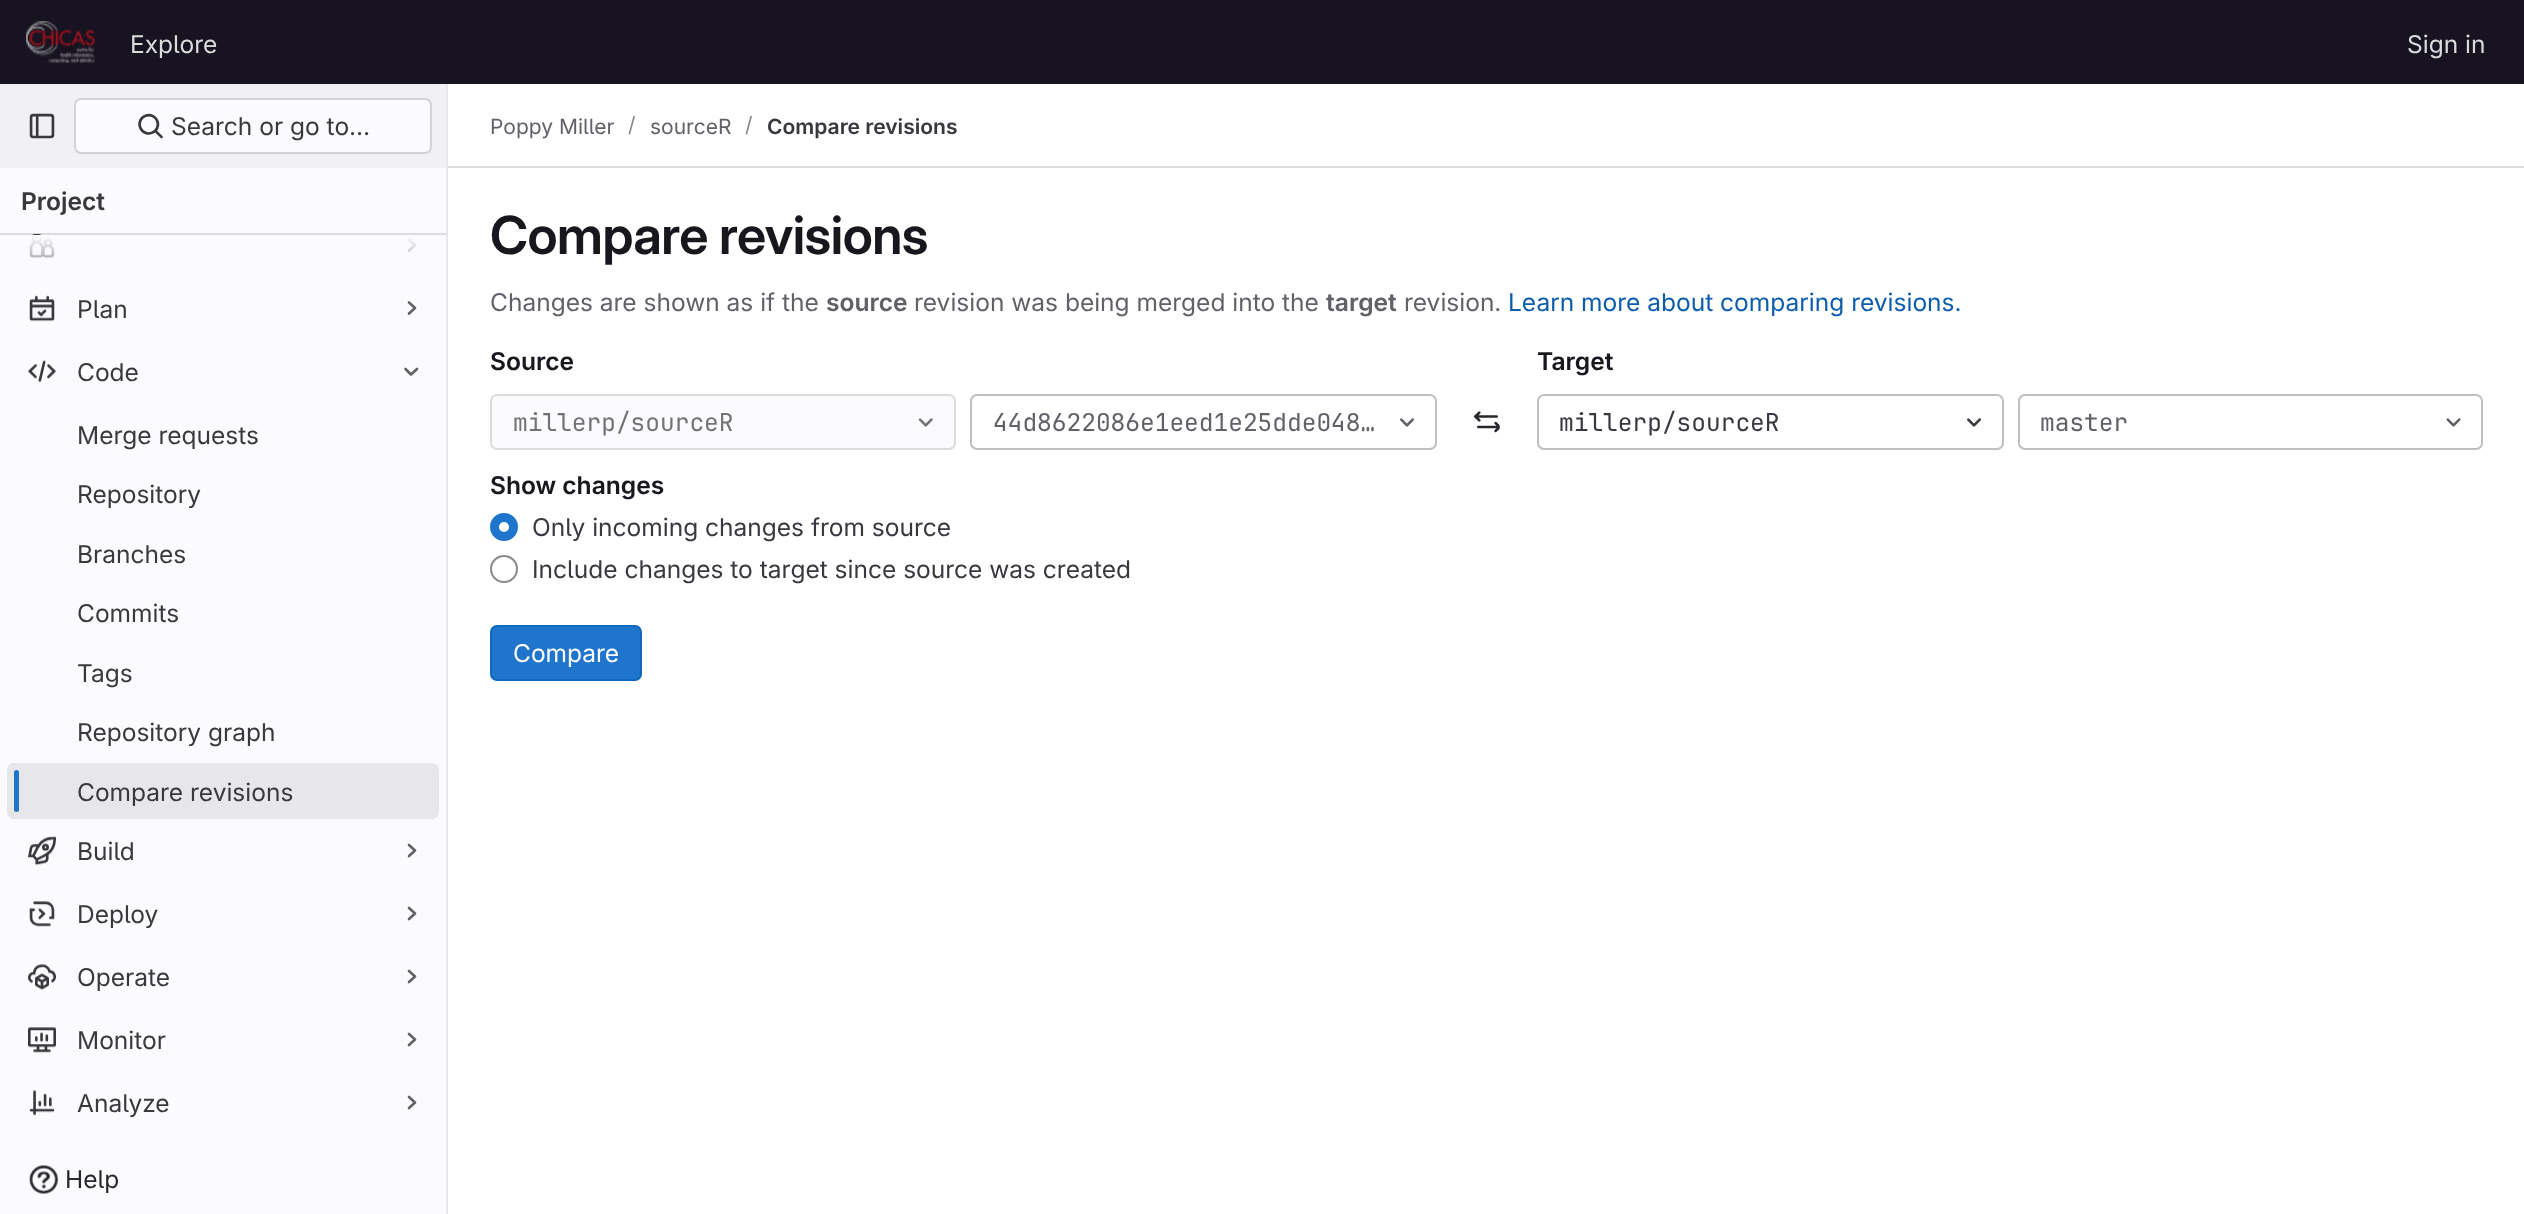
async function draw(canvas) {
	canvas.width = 2524;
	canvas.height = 1214;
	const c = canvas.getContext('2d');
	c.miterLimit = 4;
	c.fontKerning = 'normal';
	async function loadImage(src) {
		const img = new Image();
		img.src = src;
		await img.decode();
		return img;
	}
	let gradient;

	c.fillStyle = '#fff';
	c.fillRect(0, 0, 2524, 1214);
	c.fillStyle = '#171321';
	c.fillRect(0, 0, 2524, 84);
	c.drawImage(await loadImage('img1.png'), 26, 21, 69, 42);
	c.font = '24.5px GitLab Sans';
	c.fillStyle = '#dcdcde';
	c.fillText('Explore', 130, 53);
	c.fillText('Sign in', 2407, 53);
	for (const [x, y, w, h, color] of [
		[0, 168, 446, 1046, '#fbfafd'],
		[446, 84, 2, 1130, '#e7e6e9'],
		[0, 84, 446, 84, '#f1f0f3'],
	]) {
		c.fillStyle = color;
		c.fillRect(x, y, w, h);
	}
	c.drawImage(await loadImage('img2.png'), 29, 113, 26, 26);
	c.fillStyle = '#fbfafd';
	c.beginPath();
	c.roundRect(74, 98, 358, 56, 7);
	c.fill();
	c.beginPath();
	c.roundRect(75, 99, 356, 54, 6);
	c.strokeStyle = '#05050629';
	c.lineWidth = 2;
	c.stroke();
	c.drawImage(await loadImage('img3.png'), 138, 113, 25, 26);
	c.fillStyle = '#3a383f';
	c.fillText('Search or go to…', 171, 135);
	c.font = '600 24.5px "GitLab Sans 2"';
	c.fillText('Project', 21, 210);
	c.fillStyle = '#dcdcde';
	c.fillRect(0, 233, 446, 2);
	c.drawImage(await loadImage('img4.png'), 29, 234, 26, 25);
	c.beginPath();
	c.moveTo(409, 239.5);
	c.lineTo(415, 245);
	c.lineTo(409, 250.5);
	c.strokeStyle = '#626168';
	c.lineWidth = 2.6;
	c.lineCap = 'round';
	c.lineJoin = 'round';
	c.stroke();
	c.drawImage(await loadImage('img5.png'), 29, 295, 26, 27);
	gradient = c.createLinearGradient(223, 235, 223, 298);
	gradient.addColorStop(0, '#fbfafd');
	gradient.addColorStop(1, '#fbfafd00');
	c.fillStyle = gradient;
	c.fillRect(29, 235, 388, 62);
	c.font = '24.5px GitLab Sans';
	c.fillStyle = '#3a383f';
	c.fillText('Plan', 77, 318);
	c.beginPath();
	c.moveTo(409, 302.5);
	c.lineTo(415, 308);
	c.lineTo(409, 313.5);
	c.stroke();
	c.drawImage(await loadImage('img6.png'), 28, 360, 28, 23);
	c.fillText('Code', 77, 381);
	c.beginPath();
	c.moveTo(417, 369);
	c.lineTo(411, 374.5);
	c.lineTo(405.5, 369);
	c.stroke();
	for (const [text, x, y] of [
		['Merge requests', 77, 444],
		['Repository', 77, 503],
		['Branches', 77, 563],
		['Commits', 77, 622],
		['Tags', 77, 682],
		['Repository graph', 77, 741],
	]) {
		c.fillText(text, x, y);
	}
	c.fillStyle = '#e7e6e9';
	c.beginPath();
	c.roundRect(7, 763, 432, 56, 7);
	c.fill();
	c.fillStyle = '#1f75cb';
	c.beginPath();
	c.roundRect(14, 770, 5, 42, 2.5);
	c.fill();
	c.fillStyle = '#3a383f';
	c.fillText('Compare revisions', 77, 801);
	c.drawImage(await loadImage('img7.png'), 28, 836, 28, 30);
	c.fillText('Build', 77, 860);
	c.beginPath();
	c.moveTo(409, 845);
	c.lineTo(415, 850.5);
	c.lineTo(409, 856);
	c.stroke();
	c.drawImage(await loadImage('img8.png'), 29, 901, 26, 26);
	c.fillText('Deploy', 77, 923);
	c.beginPath();
	c.moveTo(409, 908);
	c.lineTo(415, 913.5);
	c.lineTo(409, 919);
	c.stroke();
	c.drawImage(await loadImage('img9.png'), 28, 964, 28, 26);
	c.fillText('Operate', 77, 986);
	c.beginPath();
	c.moveTo(409, 971);
	c.lineTo(415, 976.5);
	c.lineTo(409, 982);
	c.stroke();
	c.drawImage(await loadImage('img10.png'), 28, 1027, 28, 26);
	c.fillText('Monitor', 77, 1049);
	c.beginPath();
	c.moveTo(409, 1034);
	c.lineTo(415, 1039.5);
	c.lineTo(409, 1045);
	c.stroke();
	c.drawImage(await loadImage('img11.png'), 29, 1090, 26, 26);
	c.fillText('Analyze', 77, 1112);
	c.beginPath();
	c.moveTo(409, 1097);
	c.lineTo(415, 1102.5);
	c.lineTo(409, 1108);
	c.stroke();
	c.drawImage(await loadImage('img12.png'), 29, 1165, 29, 29);
	c.fillStyle = '#28272d';
	c.fillText('Help', 65, 1188);
	c.fillStyle = '#dcdcde';
	c.fillRect(448, 166, 2076, 2);
	c.font = '21px GitLab Sans';
	c.fillStyle = '#626168';
	c.fillText('Poppy Miller', 490, 134);
	c.fillStyle = '#89888d';
	c.fillText('/', 628, 132);
	c.fillStyle = '#626168';
	c.fillText('sourceR', 650, 134);
	c.fillStyle = '#89888d';
	c.fillText('/', 745, 132);
	c.font = '600 21px "GitLab Sans 2"';
	c.fillStyle = '#3a383f';
	c.fillText('Compare revisions', 767, 134);
	c.letterSpacing = '-0.5px';
	c.font = '600 52.5px GitLab Sans';
	c.fillStyle = '#18171d';
	c.fillText('Compare revisions', 490, 254);
	c.letterSpacing = '0px';
	c.font = '24.5px GitLab Sans';
	c.fillStyle = '#626168';
	c.fillText('Changes are shown as if the', 490, 311);
	c.font = '600 24.5px "GitLab Sans 2"';
	c.fillText('source', 826, 311);
	c.font = '24.5px GitLab Sans';
	c.fillText('revision was being merged into the', 914, 311);
	c.font = '600 24.5px "GitLab Sans 2"';
	c.fillText('target', 1326, 311);
	c.font = '24.5px GitLab Sans';
	c.fillText('revision.', 1404, 311);
	c.fillStyle = '#0b5cad';
	c.fillText('Learn more about comparing revisions.', 1508, 311);
	c.font = '600 24.5px "GitLab Sans 2"';
	c.fillStyle = '#18171d';
	c.fillText('Source', 490, 370);
	c.fillStyle = '#fbfafd';
	c.beginPath();
	c.roundRect(491, 395, 464, 54, 6);
	c.fill();
	c.strokeStyle = '#dcdcde';
	c.lineWidth = 2;
	c.lineJoin = 'miter';
	c.stroke();
	c.font = '24.5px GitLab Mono';
	c.fillStyle = '#737278';
	c.fillText('millerp/sourceR', 513, 431);
	c.drawImage(await loadImage('img13.png'), 918, 418, 15, 9);
	c.beginPath();
	c.roundRect(971, 395, 465, 54, 6);
	c.strokeStyle = '#bfbfc3';
	c.stroke();
	c.fillStyle = '#626168';
	c.fillText('44d8622086e1eed1e25dde048…', 993, 431);
	c.drawImage(await loadImage('img14.png'), 1400, 418, 14, 9);
	c.drawImage(await loadImage('img15.png'), 1473, 411, 27, 22);
	c.font = '600 24.5px "GitLab Sans 2"';
	c.fillStyle = '#18171d';
	c.fillText('Target', 1537, 370);
	c.beginPath();
	c.roundRect(1538, 395, 465, 54, 6);
	c.stroke();
	c.font = '24.5px GitLab Mono';
	c.fillStyle = '#3a383f';
	c.fillText('millerp/sourceR', 1559, 431);
	c.drawImage(await loadImage('img16.png'), 1967, 418, 14, 9);
	c.beginPath();
	c.roundRect(2019, 395, 463, 54, 6);
	c.stroke();
	c.fillStyle = '#626168';
	c.fillText('master', 2040, 431);
	c.drawImage(await loadImage('img17.png'), 2446, 418, 15, 9);
	c.font = '600 24.5px "GitLab Sans 2"';
	c.fillStyle = '#18171d';
	c.fillText('Show changes', 490, 494);
	c.fillStyle = '#1f75cb';
	c.beginPath();
	c.arc(504, 527, 13, 0, 2 * Math.PI);
	c.fill();
	c.strokeStyle = '#1f75cb';
	c.stroke();
	c.font = '24.5px GitLab Sans';
	c.fillStyle = '#3a383f';
	c.fillText('Only incoming changes from source', 532, 536);
	c.fillStyle = '#fff';
	c.beginPath();
	c.arc(504, 527, 5, 0, 2 * Math.PI);
	c.fill();
	c.beginPath();
	c.arc(504, 569, 13, 0, 2 * Math.PI);
	c.strokeStyle = '#89888d';
	c.stroke();
	c.fillStyle = '#3a383f';
	c.fillText('Include changes to target since source was created', 532, 578);
	c.fillStyle = '#1f75cb';
	c.beginPath();
	c.roundRect(491, 626, 150, 54, 6);
	c.fill();
	c.strokeStyle = '#1068bf';
	c.stroke();
	c.fillStyle = '#fff';
	c.fillText('Compare', 513, 662);
}

draw(document.querySelector('canvas'));
